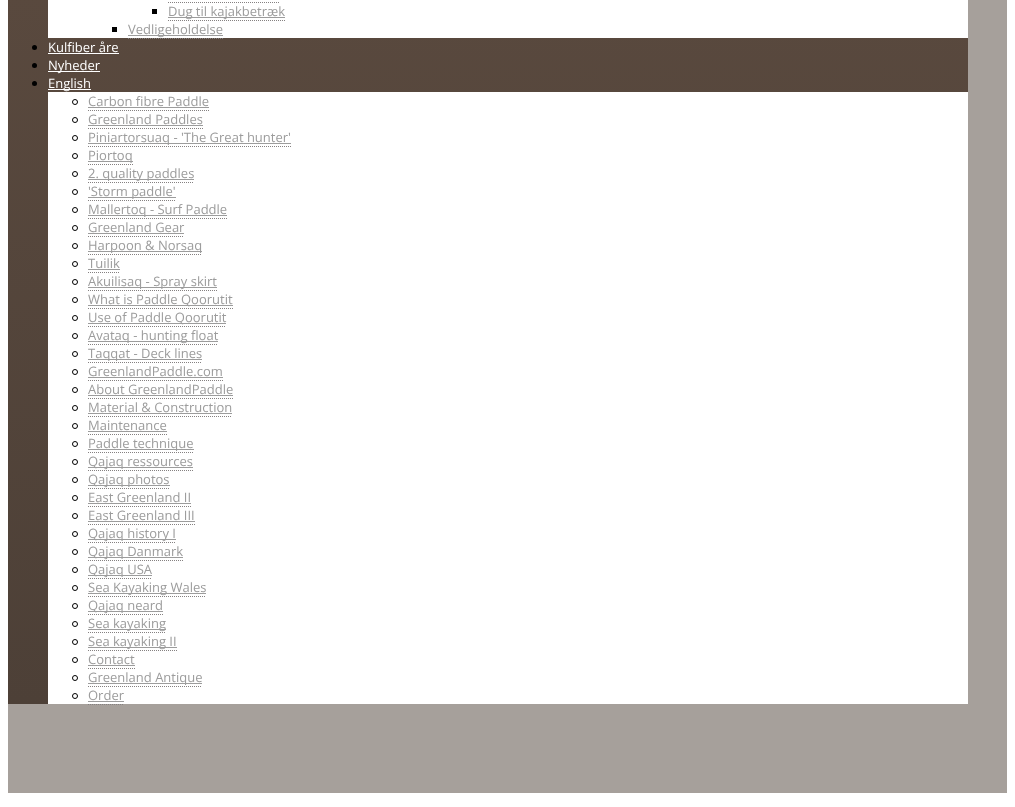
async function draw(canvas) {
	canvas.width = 1015;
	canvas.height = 807;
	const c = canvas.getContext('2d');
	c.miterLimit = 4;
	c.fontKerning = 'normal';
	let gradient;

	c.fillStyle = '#fff';
	c.fillRect(0, 0, 1015, 807);
	c.fillStyle = '#a6a09b';
	c.fillRect(8, 0, 999, 793);
	gradient = c.createLinearGradient(488, -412, 488, 704);
	gradient.addColorStop(0, '#604e42');
	gradient.addColorStop(1, '#4d4037');
	c.fillStyle = gradient;
	c.fillRect(8, 0, 960, 704);
	c.fillStyle = '#fff';
	c.fillRect(48, 0, 920, 38);
	c.beginPath();
	c.moveTo(168, 2.5);
	c.lineTo(280, 2.5);
	c.strokeStyle = '#858181';
	c.setLineDash([1, 1]);
	c.stroke();
	c.fillStyle = '#000';
	c.fillRect(152, 9, 5, 5);
	c.fillStyle = '#9c9c9c';
	c.fillRect(168, 17, 117, 1);
	c.font = '13px Open Sans';
	c.fillText('Dug til kajakbetræk', 168, 16);
	c.beginPath();
	c.moveTo(168, 20.5);
	c.lineTo(285, 20.5);
	c.stroke();
	c.fillStyle = '#000';
	c.fillRect(112, 27, 5, 5);
	c.fillStyle = '#9c9c9c';
	c.fillRect(128, 35, 95, 1);
	c.fillText('Vedligeholdelse', 128, 34);
	c.beginPath();
	c.moveTo(128, 38.5);
	c.lineTo(223, 38.5);
	c.stroke();
	c.fillStyle = '#000';
	c.beginPath();
	c.arc(34.5, 47.5, 2.5, 0, 2 * Math.PI);
	c.fill();
	c.fillStyle = '#fff';
	c.fillText('Kulfiber åre', 48, 52);
	c.fillRect(48, 53, 71, 1);
	c.fillStyle = '#000';
	c.beginPath();
	c.arc(34.5, 65.5, 2.5, 0, 2 * Math.PI);
	c.fill();
	c.fillStyle = '#fff';
	c.fillRect(48, 71, 52, 1);
	c.fillText('Nyheder', 48, 70);
	c.fillStyle = '#000';
	c.beginPath();
	c.arc(34.5, 83.5, 2.5, 0, 2 * Math.PI);
	c.fill();
	c.fillStyle = '#fff';
	c.fillRect(48, 89, 43, 1);
	c.fillText('English', 48, 88);
	c.fillRect(48, 92, 920, 612);
	c.beginPath();
	c.arc(75, 102, 2.5, 0, 2 * Math.PI);
	c.strokeStyle = '#000';
	c.setLineDash([]);
	c.stroke();
	c.fillStyle = '#9c9c9c';
	c.fillText('Carbon fibre Paddle', 88, 106);
	c.beginPath();
	c.moveTo(88, 110.5);
	c.lineTo(209, 110.5);
	c.strokeStyle = '#858181';
	c.setLineDash([1, 1]);
	c.stroke();
	c.fillRect(88, 107, 121, 1);
	c.beginPath();
	c.arc(75, 120, 2.5, 0, 2 * Math.PI);
	c.strokeStyle = '#000';
	c.setLineDash([]);
	c.stroke();
	c.fillText('Greenland Paddles', 88, 124);
	c.beginPath();
	c.moveTo(88, 128.5);
	c.lineTo(203, 128.5);
	c.strokeStyle = '#858181';
	c.setLineDash([1, 1]);
	c.stroke();
	c.fillRect(88, 125, 115, 1);
	c.beginPath();
	c.arc(75, 138, 2.5, 0, 2 * Math.PI);
	c.strokeStyle = '#000';
	c.setLineDash([]);
	c.stroke();
	c.fillRect(88, 143, 203, 1);
	c.fillText('Piniartorsuaq - \'The Great hunter\'', 88, 142);
	c.beginPath();
	c.moveTo(88, 146.5);
	c.lineTo(291, 146.5);
	c.strokeStyle = '#858181';
	c.setLineDash([1, 1]);
	c.stroke();
	c.beginPath();
	c.arc(75, 156, 2.5, 0, 2 * Math.PI);
	c.strokeStyle = '#000';
	c.setLineDash([]);
	c.stroke();
	c.fillRect(88, 161, 45, 1);
	c.fillText('Piortoq', 88, 160);
	c.beginPath();
	c.moveTo(88, 164.5);
	c.lineTo(133, 164.5);
	c.strokeStyle = '#858181';
	c.setLineDash([1, 1]);
	c.stroke();
	c.beginPath();
	c.arc(75, 174, 2.5, 0, 2 * Math.PI);
	c.strokeStyle = '#000';
	c.setLineDash([]);
	c.stroke();
	c.fillRect(88, 179, 106, 1);
	c.fillText('2. quality paddles', 88, 178);
	c.beginPath();
	c.moveTo(88, 182.5);
	c.lineTo(194, 182.5);
	c.strokeStyle = '#858181';
	c.setLineDash([1, 1]);
	c.stroke();
	c.beginPath();
	c.arc(75, 192, 2.5, 0, 2 * Math.PI);
	c.strokeStyle = '#000';
	c.setLineDash([]);
	c.stroke();
	c.fillRect(88, 197, 88, 1);
	c.fillText('\'Storm paddle\'', 88, 196);
	c.beginPath();
	c.moveTo(88, 200.5);
	c.lineTo(176, 200.5);
	c.strokeStyle = '#858181';
	c.setLineDash([1, 1]);
	c.stroke();
	c.beginPath();
	c.arc(75, 210, 2.5, 0, 2 * Math.PI);
	c.strokeStyle = '#000';
	c.setLineDash([]);
	c.stroke();
	c.fillRect(88, 215, 139, 1);
	c.fillText('Mallertoq - Surf Paddle', 88, 214);
	c.beginPath();
	c.moveTo(88, 218.5);
	c.lineTo(227, 218.5);
	c.strokeStyle = '#858181';
	c.setLineDash([1, 1]);
	c.stroke();
	c.beginPath();
	c.arc(75, 228, 2.5, 0, 2 * Math.PI);
	c.strokeStyle = '#000';
	c.setLineDash([]);
	c.stroke();
	c.fillText('Greenland Gear', 88, 232);
	c.beginPath();
	c.moveTo(88, 236.5);
	c.lineTo(184, 236.5);
	c.strokeStyle = '#858181';
	c.setLineDash([1, 1]);
	c.stroke();
	c.fillRect(88, 233, 96, 1);
	c.beginPath();
	c.arc(75, 246, 2.5, 0, 2 * Math.PI);
	c.strokeStyle = '#000';
	c.setLineDash([]);
	c.stroke();
	c.fillRect(88, 251, 114, 1);
	c.fillText('Harpoon & Norsaq', 88, 250);
	c.beginPath();
	c.moveTo(88, 254.5);
	c.lineTo(202, 254.5);
	c.strokeStyle = '#858181';
	c.setLineDash([1, 1]);
	c.stroke();
	c.beginPath();
	c.arc(75, 264, 2.5, 0, 2 * Math.PI);
	c.strokeStyle = '#000';
	c.setLineDash([]);
	c.stroke();
	c.fillText('Tuilik', 88, 268);
	c.beginPath();
	c.moveTo(88, 272.5);
	c.lineTo(120, 272.5);
	c.strokeStyle = '#858181';
	c.setLineDash([1, 1]);
	c.stroke();
	c.fillRect(88, 269, 32, 1);
	c.beginPath();
	c.arc(75, 282, 2.5, 0, 2 * Math.PI);
	c.strokeStyle = '#000';
	c.setLineDash([]);
	c.stroke();
	c.fillRect(88, 287, 129, 1);
	c.fillText('Akuilisaq - Spray skirt', 88, 286);
	c.beginPath();
	c.moveTo(88, 290.5);
	c.lineTo(217, 290.5);
	c.strokeStyle = '#858181';
	c.setLineDash([1, 1]);
	c.stroke();
	c.beginPath();
	c.arc(75, 300, 2.5, 0, 2 * Math.PI);
	c.strokeStyle = '#000';
	c.setLineDash([]);
	c.stroke();
	c.fillRect(88, 305, 145, 1);
	c.fillText('What is Paddle Qoorutit', 88, 304);
	c.beginPath();
	c.moveTo(88, 308.5);
	c.lineTo(233, 308.5);
	c.strokeStyle = '#858181';
	c.setLineDash([1, 1]);
	c.stroke();
	c.beginPath();
	c.arc(75, 318, 2.5, 0, 2 * Math.PI);
	c.strokeStyle = '#000';
	c.setLineDash([]);
	c.stroke();
	c.fillRect(88, 323, 138, 1);
	c.fillText('Use of Paddle Qoorutit', 88, 322);
	c.beginPath();
	c.moveTo(88, 326.5);
	c.lineTo(226, 326.5);
	c.strokeStyle = '#858181';
	c.setLineDash([1, 1]);
	c.stroke();
	c.beginPath();
	c.arc(75, 336, 2.5, 0, 2 * Math.PI);
	c.strokeStyle = '#000';
	c.setLineDash([]);
	c.stroke();
	c.fillRect(88, 341, 130, 1);
	c.fillText('Avataq - hunting float', 88, 340);
	c.beginPath();
	c.moveTo(88, 344.5);
	c.lineTo(218, 344.5);
	c.strokeStyle = '#858181';
	c.setLineDash([1, 1]);
	c.stroke();
	c.beginPath();
	c.arc(75, 354, 2.5, 0, 2 * Math.PI);
	c.strokeStyle = '#000';
	c.setLineDash([]);
	c.stroke();
	c.fillRect(88, 359, 114, 1);
	c.fillText('Taqqat - Deck lines', 88, 358);
	c.beginPath();
	c.moveTo(88, 362.5);
	c.lineTo(202, 362.5);
	c.strokeStyle = '#858181';
	c.setLineDash([1, 1]);
	c.stroke();
	c.beginPath();
	c.arc(75, 372, 2.5, 0, 2 * Math.PI);
	c.strokeStyle = '#000';
	c.setLineDash([]);
	c.stroke();
	c.fillText('GreenlandPaddle.com', 88, 376);
	c.beginPath();
	c.moveTo(88, 380.5);
	c.lineTo(223, 380.5);
	c.strokeStyle = '#858181';
	c.setLineDash([1, 1]);
	c.stroke();
	c.fillRect(88, 377, 135, 1);
	c.beginPath();
	c.arc(75, 390, 2.5, 0, 2 * Math.PI);
	c.strokeStyle = '#000';
	c.setLineDash([]);
	c.stroke();
	c.fillText('About GreenlandPaddle', 88, 394);
	c.beginPath();
	c.moveTo(88, 398.5);
	c.lineTo(233, 398.5);
	c.strokeStyle = '#858181';
	c.setLineDash([1, 1]);
	c.stroke();
	c.fillRect(88, 395, 145, 1);
	c.beginPath();
	c.arc(75, 408, 2.5, 0, 2 * Math.PI);
	c.strokeStyle = '#000';
	c.setLineDash([]);
	c.stroke();
	c.fillText('Material & Construction', 88, 412);
	c.beginPath();
	c.moveTo(88, 416.5);
	c.lineTo(232, 416.5);
	c.strokeStyle = '#858181';
	c.setLineDash([1, 1]);
	c.stroke();
	c.fillRect(88, 413, 144, 1);
	c.beginPath();
	c.arc(75, 426, 2.5, 0, 2 * Math.PI);
	c.strokeStyle = '#000';
	c.setLineDash([]);
	c.stroke();
	c.fillText('Maintenance', 88, 430);
	c.beginPath();
	c.moveTo(88, 434.5);
	c.lineTo(167, 434.5);
	c.strokeStyle = '#858181';
	c.setLineDash([1, 1]);
	c.stroke();
	c.fillRect(88, 431, 79, 1);
	c.beginPath();
	c.arc(75, 444, 2.5, 0, 2 * Math.PI);
	c.strokeStyle = '#000';
	c.setLineDash([]);
	c.stroke();
	c.fillRect(88, 449, 106, 1);
	c.fillText('Paddle technique', 88, 448);
	c.beginPath();
	c.moveTo(88, 452.5);
	c.lineTo(194, 452.5);
	c.strokeStyle = '#858181';
	c.setLineDash([1, 1]);
	c.stroke();
	c.beginPath();
	c.arc(75, 462, 2.5, 0, 2 * Math.PI);
	c.strokeStyle = '#000';
	c.setLineDash([]);
	c.stroke();
	c.fillRect(88, 467, 105, 1);
	c.fillText('Qajaq ressources', 88, 466);
	c.beginPath();
	c.moveTo(88, 470.5);
	c.lineTo(193, 470.5);
	c.strokeStyle = '#858181';
	c.setLineDash([1, 1]);
	c.stroke();
	c.beginPath();
	c.arc(75, 480, 2.5, 0, 2 * Math.PI);
	c.strokeStyle = '#000';
	c.setLineDash([]);
	c.stroke();
	c.fillRect(88, 485, 82, 1);
	c.fillText('Qajaq photos', 88, 484);
	c.beginPath();
	c.moveTo(88, 488.5);
	c.lineTo(170, 488.5);
	c.strokeStyle = '#858181';
	c.setLineDash([1, 1]);
	c.stroke();
	c.beginPath();
	c.arc(75, 498, 2.5, 0, 2 * Math.PI);
	c.strokeStyle = '#000';
	c.setLineDash([]);
	c.stroke();
	c.fillText('East Greenland II', 88, 502);
	c.beginPath();
	c.moveTo(88, 506.5);
	c.lineTo(191, 506.5);
	c.strokeStyle = '#858181';
	c.setLineDash([1, 1]);
	c.stroke();
	c.fillRect(88, 503, 103, 1);
	c.beginPath();
	c.arc(75, 516, 2.5, 0, 2 * Math.PI);
	c.strokeStyle = '#000';
	c.setLineDash([]);
	c.stroke();
	c.fillText('East Greenland III', 88, 520);
	c.beginPath();
	c.moveTo(88, 524.5);
	c.lineTo(195, 524.5);
	c.strokeStyle = '#858181';
	c.setLineDash([1, 1]);
	c.stroke();
	c.fillRect(88, 521, 107, 1);
	c.beginPath();
	c.arc(75, 534, 2.5, 0, 2 * Math.PI);
	c.strokeStyle = '#000';
	c.setLineDash([]);
	c.stroke();
	c.fillRect(88, 539, 88, 1);
	c.fillText('Qajaq history I', 88, 538);
	c.beginPath();
	c.moveTo(88, 542.5);
	c.lineTo(176, 542.5);
	c.strokeStyle = '#858181';
	c.setLineDash([1, 1]);
	c.stroke();
	c.beginPath();
	c.arc(75, 552, 2.5, 0, 2 * Math.PI);
	c.strokeStyle = '#000';
	c.setLineDash([]);
	c.stroke();
	c.fillRect(88, 557, 95, 1);
	c.fillText('Qajaq Danmark', 88, 556);
	c.beginPath();
	c.moveTo(88, 560.5);
	c.lineTo(183, 560.5);
	c.strokeStyle = '#858181';
	c.setLineDash([1, 1]);
	c.stroke();
	c.beginPath();
	c.arc(75, 570, 2.5, 0, 2 * Math.PI);
	c.strokeStyle = '#000';
	c.setLineDash([]);
	c.stroke();
	c.fillRect(88, 575, 64, 1);
	c.fillText('Qajaq USA', 88, 574);
	c.beginPath();
	c.moveTo(88, 578.5);
	c.lineTo(152, 578.5);
	c.strokeStyle = '#858181';
	c.setLineDash([1, 1]);
	c.stroke();
	c.beginPath();
	c.arc(75, 588, 2.5, 0, 2 * Math.PI);
	c.strokeStyle = '#000';
	c.setLineDash([]);
	c.stroke();
	c.fillRect(88, 593, 118, 1);
	c.fillText('Sea Kayaking Wales', 88, 592);
	c.beginPath();
	c.moveTo(88, 596.5);
	c.lineTo(206, 596.5);
	c.strokeStyle = '#858181';
	c.setLineDash([1, 1]);
	c.stroke();
	c.beginPath();
	c.arc(75, 606, 2.5, 0, 2 * Math.PI);
	c.strokeStyle = '#000';
	c.setLineDash([]);
	c.stroke();
	c.fillRect(88, 611, 75, 1);
	c.fillText('Qajaq neard', 88, 610);
	c.beginPath();
	c.moveTo(88, 614.5);
	c.lineTo(163, 614.5);
	c.strokeStyle = '#858181';
	c.setLineDash([1, 1]);
	c.stroke();
	c.beginPath();
	c.arc(75, 624, 2.5, 0, 2 * Math.PI);
	c.strokeStyle = '#000';
	c.setLineDash([]);
	c.stroke();
	c.fillRect(88, 629, 78, 1);
	c.fillText('Sea kayaking', 88, 628);
	c.beginPath();
	c.moveTo(88, 632.5);
	c.lineTo(166, 632.5);
	c.strokeStyle = '#858181';
	c.setLineDash([1, 1]);
	c.stroke();
	c.beginPath();
	c.arc(75, 642, 2.5, 0, 2 * Math.PI);
	c.strokeStyle = '#000';
	c.setLineDash([]);
	c.stroke();
	c.fillRect(88, 647, 89, 1);
	c.fillText('Sea kayaking II', 88, 646);
	c.beginPath();
	c.moveTo(88, 650.5);
	c.lineTo(177, 650.5);
	c.strokeStyle = '#858181';
	c.setLineDash([1, 1]);
	c.stroke();
	c.beginPath();
	c.arc(75, 660, 2.5, 0, 2 * Math.PI);
	c.strokeStyle = '#000';
	c.setLineDash([]);
	c.stroke();
	c.fillText('Contact', 88, 664);
	c.beginPath();
	c.moveTo(88, 668.5);
	c.lineTo(135, 668.5);
	c.strokeStyle = '#858181';
	c.setLineDash([1, 1]);
	c.stroke();
	c.fillRect(88, 665, 47, 1);
	c.beginPath();
	c.arc(75, 678, 2.5, 0, 2 * Math.PI);
	c.strokeStyle = '#000';
	c.setLineDash([]);
	c.stroke();
	c.fillRect(88, 683, 114, 1);
	c.fillText('Greenland Antique', 88, 682);
	c.beginPath();
	c.moveTo(88, 686.5);
	c.lineTo(202, 686.5);
	c.strokeStyle = '#858181';
	c.setLineDash([1, 1]);
	c.stroke();
	c.beginPath();
	c.arc(75, 696, 2.5, 0, 2 * Math.PI);
	c.strokeStyle = '#000';
	c.setLineDash([]);
	c.stroke();
	c.fillText('Order', 88, 700);
	c.beginPath();
	c.moveTo(88, 704.5);
	c.lineTo(124, 704.5);
	c.strokeStyle = '#858181';
	c.setLineDash([1, 1]);
	c.stroke();
	c.fillRect(88, 701, 36, 1);
}

draw(document.querySelector('canvas'));
